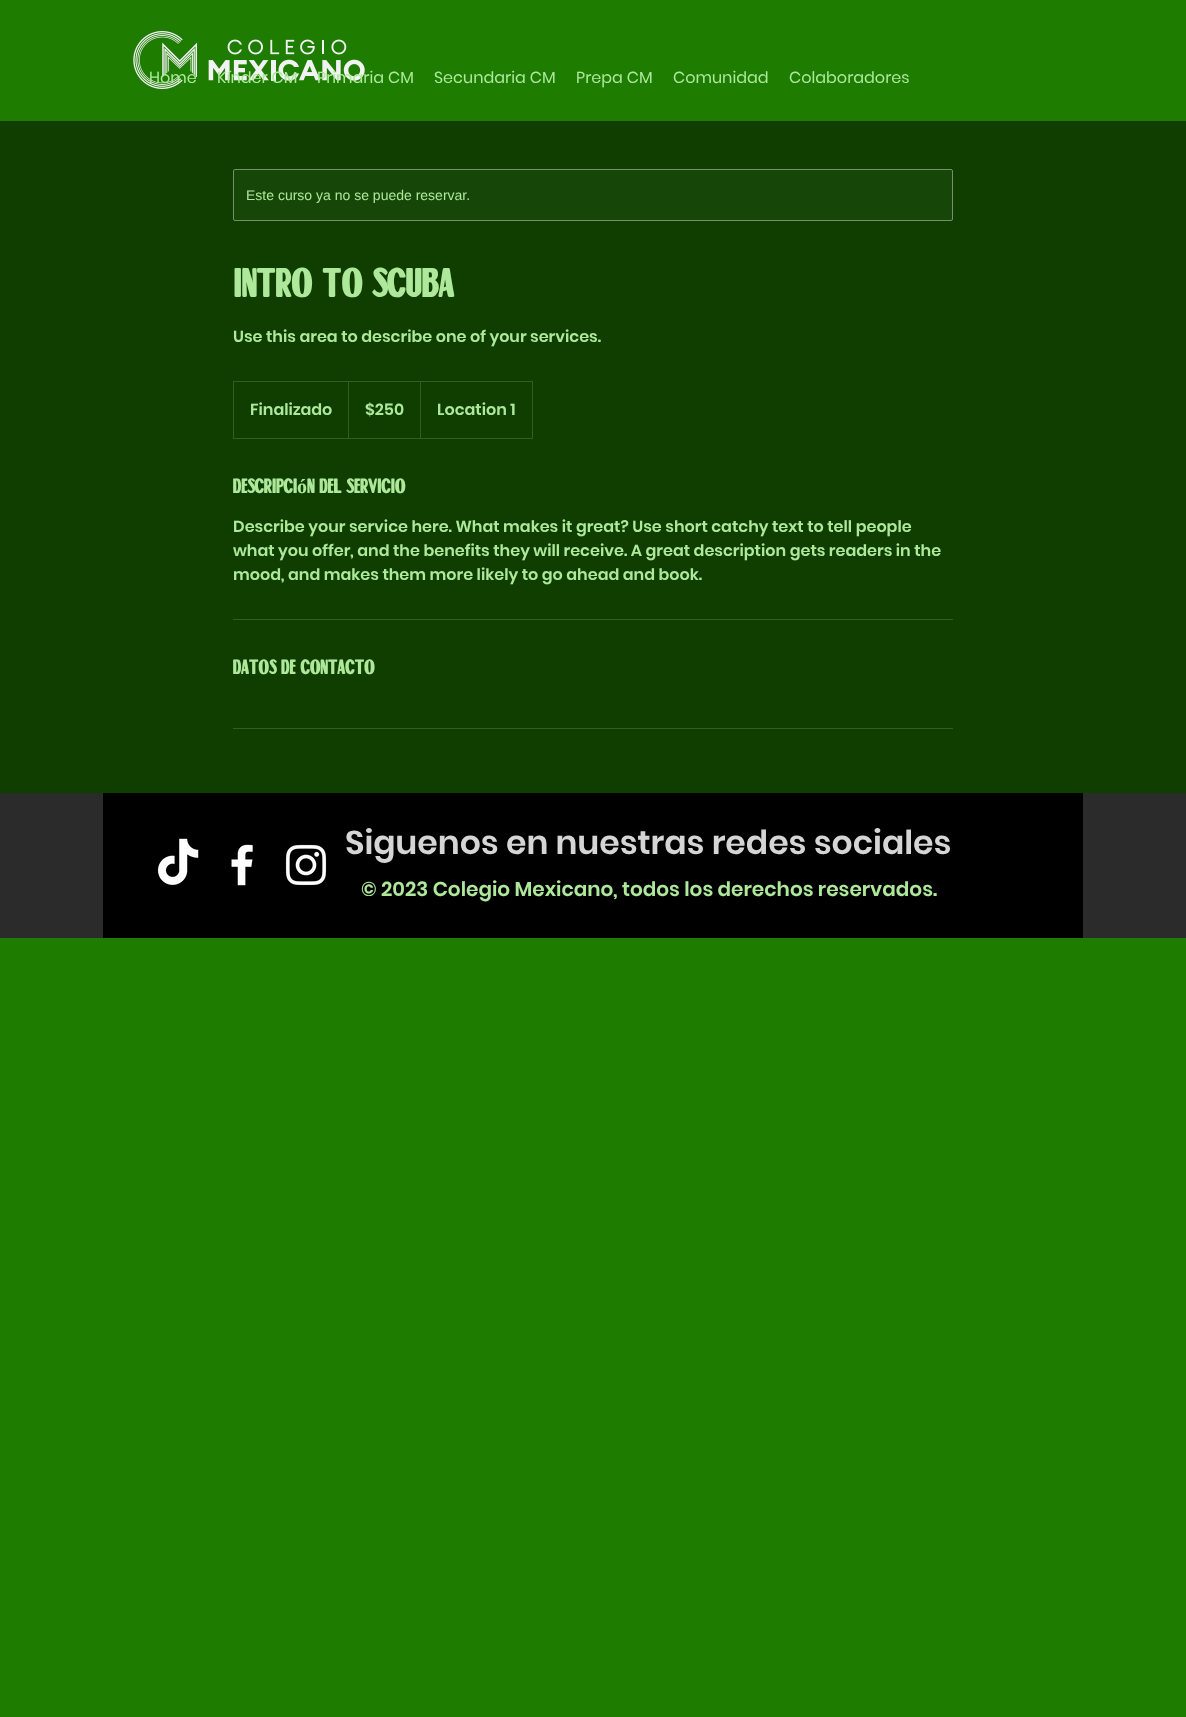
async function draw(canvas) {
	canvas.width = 1186;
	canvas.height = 1717;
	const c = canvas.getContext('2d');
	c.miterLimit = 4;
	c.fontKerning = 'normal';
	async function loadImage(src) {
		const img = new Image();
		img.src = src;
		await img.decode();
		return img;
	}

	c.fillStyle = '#1e7c00';
	c.fillRect(0, 0, 1186, 1717);
	c.drawImage(await loadImage('img1.png'), 133, 31, 232, 58);
	c.font = '16px Poppins';
	c.fillStyle = '#ade89b';
	for (const [text, x, y] of [
		['Home', 149, 83],
		['Kínder CM', 217, 83],
		['Primaria CM', 317, 83],
		['Secundaria CM', 434, 83],
		['Prepa CM', 576, 83],
		['Comunidad', 673, 83],
		['Colaboradores', 789, 83],
	]) {
		c.fillText(text, x, y);
	}
	c.fillStyle = '#0f3e00';
	c.fillRect(0, 121, 1186, 672);
	c.fillStyle = '#174708';
	c.beginPath();
	c.roundRect(233.5, 169.5, 719, 51, 1.5);
	c.fill();
	c.strokeStyle = '#74916b';
	c.stroke();
	c.font = '14px Liberation Sans';
	c.fillStyle = '#ade89b';
	c.fillText('Este curso ya no se puede reservar.', 246, 200);
	c.font = 'bold 40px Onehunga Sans';
	c.fillText('Intro to Scuba', 233, 297);
	c.font = '600 16px Poppins';
	c.fillText('Use this area to describe one of your services.', 233, 342);
	c.strokeStyle = '#2f601f';
	c.strokeRect(233.5, 381.5, 299, 57);
	c.fillText('Finalizado', 250, 415);
	c.fillStyle = '#2f601f';
	c.beginPath();
	c.moveTo(348, 438);
	c.lineTo(348, 381);
	c.lineTo(349, 382);
	c.lineTo(349, 438);
	c.closePath();
	c.fill();
	c.fillStyle = '#ade89b';
	c.fillText('$250', 365, 415);
	c.fillStyle = '#2f601f';
	c.beginPath();
	c.moveTo(420, 438);
	c.lineTo(420, 381);
	c.lineTo(421, 382);
	c.lineTo(421, 438);
	c.closePath();
	c.fill();
	c.fillStyle = '#ade89b';
	c.fillText('Location 1', 437, 415);
	c.font = 'bold 20px Onehunga Sans';
	c.fillText('Descripci', 233, 493);
	c.font = 'bold 20px Liberation Serif';
	c.fillText('ó', 297, 493);
	c.font = 'bold 20px Onehunga Sans';
	c.fillText('n del servicio', 307, 493);
	c.font = '600 16px Poppins';
	for (const [text, x, y] of [
		['Describe your service here. What makes it great? Use short catchy text to tell people', 233, 532],
		['what you offer, and the benefits they will receive. A great description gets readers in the', 233, 556],
		['mood, and makes them more likely to go ahead and book.', 233, 580],
	]) {
		c.fillText(text, x, y);
	}
	c.fillStyle = '#2f601f';
	c.fillRect(233, 619, 720, 1);
	c.font = 'bold 20px Onehunga Sans';
	c.fillStyle = '#ade89b';
	c.fillText('Datos de contacto', 233, 674);
	for (const [x, y, w, h, color] of [
		[233, 728, 720, 1, '#2f601f'],
		[0, 793, 1186, 145, '#2b2b2b'],
		[103, 793, 980, 145, '#000'],
	]) {
		c.fillStyle = color;
		c.fillRect(x, y, w, h);
	}
	c.drawImage(await loadImage('img2.png'), 157, 838, 42, 47);
	c.drawImage(await loadImage('img3.png'), 231, 844, 22, 42);
	c.drawImage(await loadImage('img4.png'), 285, 844, 42, 42);
	c.font = '600 33px Poppins';
	c.fillStyle = '#d5d5d5';
	c.fillText('Siguenos en nuestras redes sociales', 345, 854);
	c.font = '600 20px Poppins';
	c.fillStyle = '#ade89b';
	c.fillText('© 2023 Colegio Mexicano, todos los derechos reservados.', 361, 896);
}

draw(document.querySelector('canvas'));
